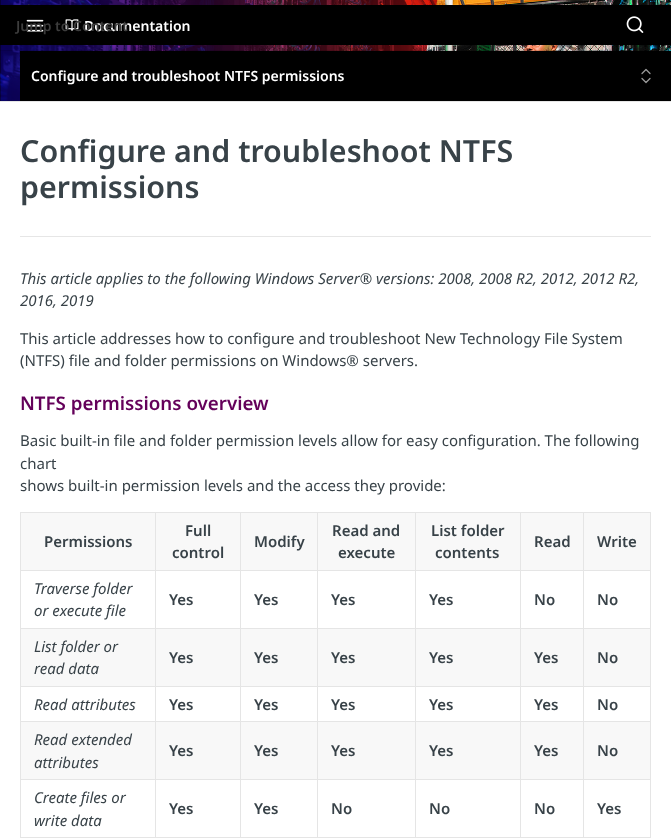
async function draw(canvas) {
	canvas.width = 671;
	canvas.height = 838;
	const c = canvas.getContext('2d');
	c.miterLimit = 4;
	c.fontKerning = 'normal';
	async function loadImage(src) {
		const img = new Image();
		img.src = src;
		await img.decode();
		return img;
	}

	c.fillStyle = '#fff';
	c.fillRect(0, 0, 671, 838);
	c.fillStyle = '#e6e6e6';
	c.fillRect(0, 101, 671, 1);
	c.drawImage(await loadImage('img1.png'), 0, 0, 671, 101);
	c.fillStyle = '#0000001a';
	c.fillRect(0, 50, 671, 1);
	c.fillStyle = '#000';
	c.fillRect(0, 5, 671, 40);
	c.drawImage(await loadImage('img2.png'), 26, 19, 18, 13);
	c.drawImage(await loadImage('img3.png'), 65, 19, 14, 12);
	c.font = '600 14px Noto Sans';
	c.fillStyle = '#fff';
	c.fillText('Documentation', 84, 31);
	c.fillStyle = '#3d3d3d';
	c.fillText('Jump to Content', 16, 31);
	c.drawImage(await loadImage('img4.png'), 626, 16, 18, 17);
	c.fillStyle = '#000';
	c.fillRect(20, 51, 651, 50);
	c.fillStyle = '#fff';
	c.fillText('Configure and troubleshoot NTFS permissions', 31, 81);
	c.beginPath();
	c.moveTo(642, 78.5);
	c.lineTo(646, 82.5);
	c.lineTo(650, 78.5);
	c.moveTo(650, 73.5);
	c.lineTo(646, 69.5);
	c.lineTo(642, 73.5);
	c.strokeStyle = '#999';
	c.lineWidth = 1.3;
	c.lineCap = 'round';
	c.lineJoin = 'round';
	c.stroke();
	c.fillStyle = '#e6e6e6';
	c.fillRect(20, 236, 631, 1);
	c.font = '600 30.4px Noto Sans';
	c.fillStyle = '#384248';
	c.fillText('Configure and troubleshoot NTFS', 20, 162);
	c.fillText('permissions', 20, 198);
	c.font = 'italic 15px Noto Sans';
	c.fillText('This article applies to the following Windows Server® versions: 2008, 2008 R2, 2012, 2012 R2,', 20, 284);
	c.fillText('2016, 2019', 20, 306);
	c.font = '15px Noto Sans';
	c.fillText('This article addresses how to configure and troubleshoot New Technology File System', 20, 344);
	c.fillText('(NTFS) file and folder permissions on Windows® servers.', 20, 366);
	c.font = '600 18.75px Noto Sans';
	c.fillStyle = '#64005a';
	c.fillText('NTFS permissions overview', 20, 410);
	c.font = '15px Noto Sans';
	c.fillStyle = '#384248';
	for (const [text, x, y] of [
		['Basic built-in file and folder permission levels allow for easy configuration. The following', 20, 446],
		['chart', 20, 469],
		['shows built-in permission levels and the access they provide:', 20, 491],
	]) {
		c.fillText(text, x, y);
	}
	for (const [x, y, w, h, color] of [
		[20, 512, 631, 1, '#e5e5e5'],
		[650, 512, 1, 326, '#e5e5e5'],
		[20, 512, 1, 326, '#e5e5e5'],
		[21, 513, 629, 57, '#f8f8f8'],
	]) {
		c.fillStyle = color;
		c.fillRect(x, y, w, h);
	}
	c.font = '600 15px Noto Sans';
	c.fillStyle = '#384248';
	c.fillText('Permissions', 44, 547);
	for (const [x, y, w, h, color] of [
		[583, 570, 68, 1, '#e5e5e5'],
		[20, 628, 631, 1, '#e5e5e5'],
		[21, 629, 629, 57, '#f8f8f8'],
		[20, 686, 631, 1, '#e5e5e5'],
		[21, 722, 629, 57, '#f8f8f8'],
		[20, 721, 631, 1, '#e5e5e5'],
		[20, 779, 631, 1, '#e5e5e5'],
		[20, 837, 631, 1, '#e5e5e5'],
		[583, 628, 1, 210, '#e5e5e5'],
		[583, 570, 1, 59, '#e5e5e5'],
		[520, 570, 64, 1, '#e5e5e5'],
		[520, 628, 1, 210, '#e5e5e5'],
		[520, 570, 1, 59, '#e5e5e5'],
		[415, 570, 106, 1, '#e5e5e5'],
		[415, 628, 1, 210, '#e5e5e5'],
		[415, 570, 1, 59, '#e5e5e5'],
		[317, 570, 99, 1, '#e5e5e5'],
		[317, 628, 1, 210, '#e5e5e5'],
		[317, 570, 1, 59, '#e5e5e5'],
		[240, 570, 78, 1, '#e5e5e5'],
		[240, 628, 1, 210, '#e5e5e5'],
		[240, 570, 1, 59, '#e5e5e5'],
		[155, 570, 86, 1, '#e5e5e5'],
		[155, 628, 1, 210, '#e5e5e5'],
		[155, 570, 1, 59, '#e5e5e5'],
		[20, 570, 136, 1, '#e5e5e5'],
		[155, 512, 1, 59, '#e5e5e5'],
	]) {
		c.fillStyle = color;
		c.fillRect(x, y, w, h);
	}
	c.fillStyle = '#384248';
	c.fillText('Full', 185, 536);
	c.fillText('control', 172, 558);
	c.fillStyle = '#e5e5e5';
	c.fillRect(240, 512, 1, 59);
	c.fillStyle = '#384248';
	c.fillText('Modify', 254, 547);
	c.fillStyle = '#e5e5e5';
	c.fillRect(317, 512, 1, 59);
	c.fillStyle = '#384248';
	c.fillText('Read and', 332, 536);
	c.fillText('execute', 338, 558);
	c.fillStyle = '#e5e5e5';
	c.fillRect(415, 512, 1, 59);
	c.fillStyle = '#384248';
	c.fillText('List folder', 431, 536);
	c.fillText('contents', 435, 558);
	c.fillStyle = '#e5e5e5';
	c.fillRect(520, 512, 1, 59);
	c.fillStyle = '#384248';
	c.fillText('Read', 534, 547);
	c.fillStyle = '#e5e5e5';
	c.fillRect(583, 512, 1, 59);
	c.fillStyle = '#384248';
	c.fillText('Write', 597, 547);
	c.font = 'italic 15px Noto Sans';
	c.fillText('Traverse folder', 34, 594);
	c.fillText('or execute file', 34, 616);
	c.font = '600 15px Noto Sans';
	for (const [text, x, y] of [
		['Yes', 169, 605],
		['Yes', 254, 605],
		['Yes', 331, 605],
		['Yes', 429, 605],
		['No', 534, 605],
		['No', 597, 605],
	]) {
		c.fillText(text, x, y);
	}
	c.font = 'italic 15px Noto Sans';
	c.fillText('List folder or', 34, 652);
	c.fillText('read data', 34, 674);
	c.font = '600 15px Noto Sans';
	for (const [text, x, y] of [
		['Yes', 169, 663],
		['Yes', 254, 663],
		['Yes', 331, 663],
		['Yes', 429, 663],
		['Yes', 534, 663],
		['No', 597, 663],
	]) {
		c.fillText(text, x, y);
	}
	c.font = 'italic 15px Noto Sans';
	c.fillText('Read attributes', 34, 710);
	c.font = '600 15px Noto Sans';
	for (const [text, x, y] of [
		['Yes', 169, 710],
		['Yes', 254, 710],
		['Yes', 331, 710],
		['Yes', 429, 710],
		['Yes', 534, 710],
		['No', 597, 710],
	]) {
		c.fillText(text, x, y);
	}
	c.font = 'italic 15px Noto Sans';
	c.fillText('Read extended', 34, 745);
	c.fillText('attributes', 34, 768);
	c.font = '600 15px Noto Sans';
	for (const [text, x, y] of [
		['Yes', 169, 756],
		['Yes', 254, 756],
		['Yes', 331, 756],
		['Yes', 429, 756],
		['Yes', 534, 756],
		['No', 597, 756],
	]) {
		c.fillText(text, x, y);
	}
	c.font = 'italic 15px Noto Sans';
	c.fillText('Create files or', 34, 803);
	c.fillText('write data', 34, 826);
	c.font = '600 15px Noto Sans';
	for (const [text, x, y] of [
		['Yes', 169, 814],
		['Yes', 254, 814],
		['No', 331, 814],
		['No', 429, 814],
		['No', 534, 814],
		['Yes', 597, 814],
	]) {
		c.fillText(text, x, y);
	}
}

draw(document.querySelector('canvas'));
